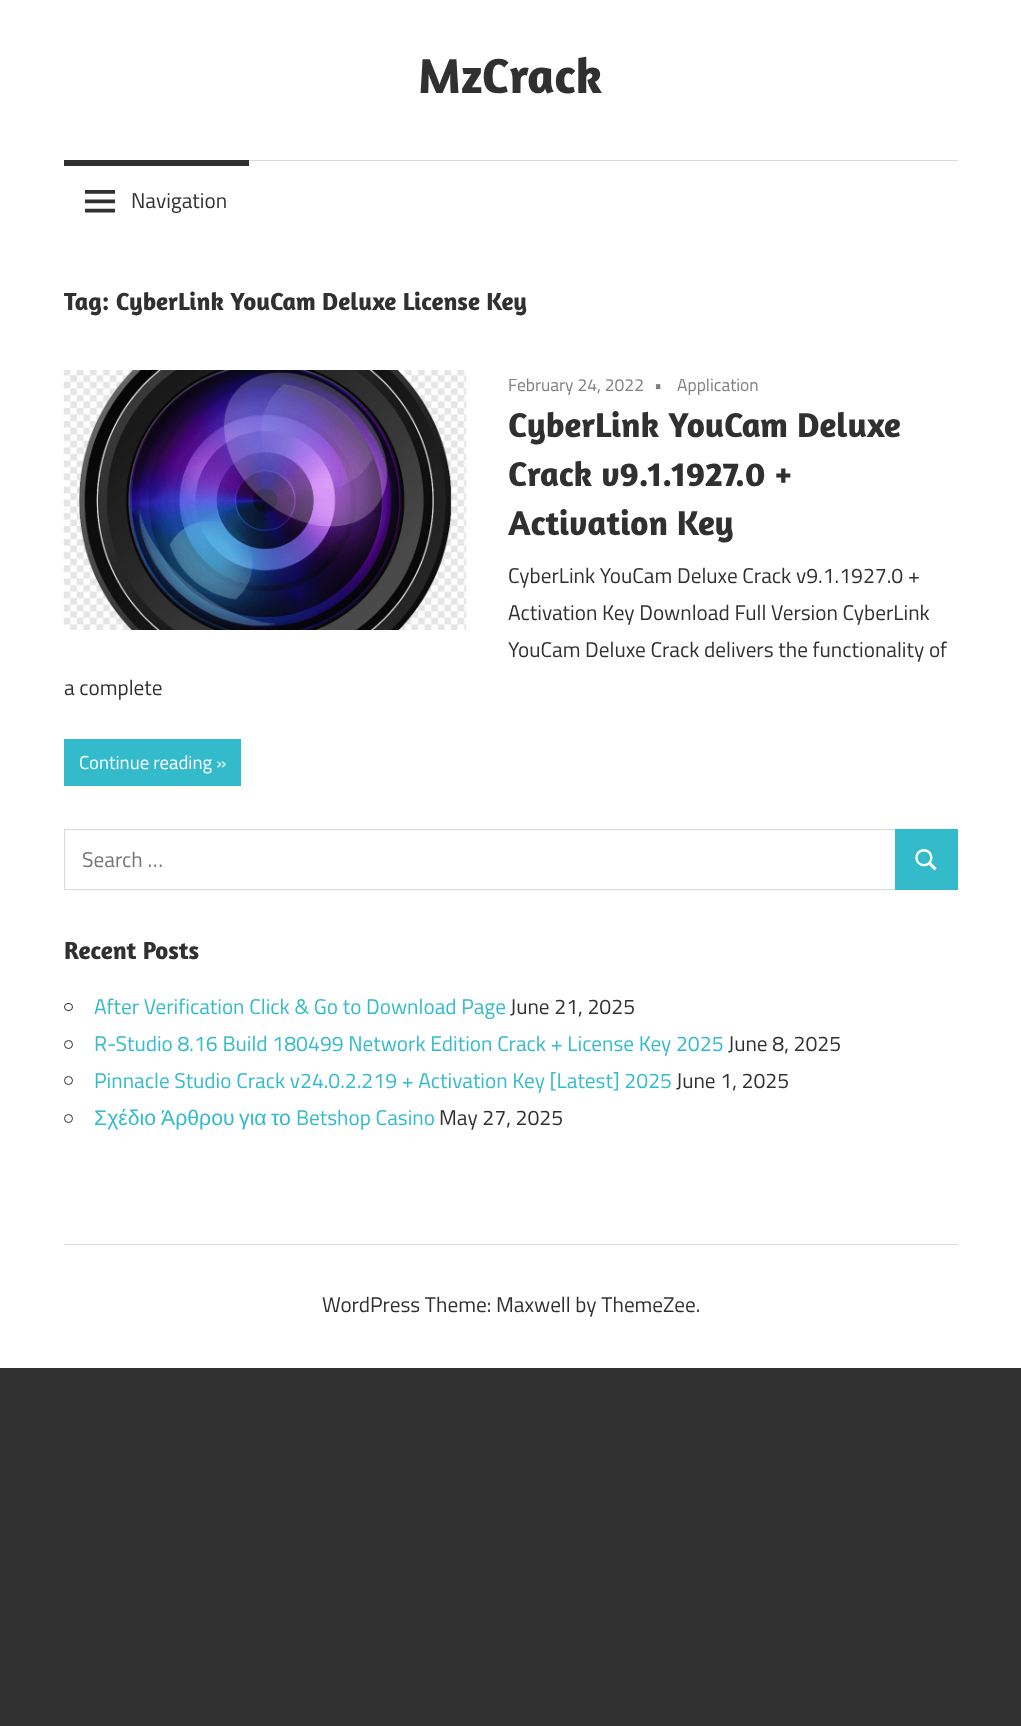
async function draw(canvas) {
	canvas.width = 1021;
	canvas.height = 1726;
	const c = canvas.getContext('2d');
	c.miterLimit = 4;
	c.fontKerning = 'normal';
	async function loadImage(src) {
		const img = new Image();
		img.src = src;
		await img.decode();
		return img;
	}

	c.fillStyle = '#303030';
	c.fillRect(0, 0, 1021, 1726);
	c.fillStyle = '#fff';
	c.fillRect(0, 0, 1021, 1368);
	c.font = 'bold 50px Amaranth';
	c.fillStyle = '#303030';
	c.fillText('MzCrack', 418, 93);
	c.fillStyle = '#d9d9d9';
	c.fillRect(249, 160, 709, 1);
	c.fillStyle = '#303030';
	c.fillRect(64, 160, 185, 6);
	c.drawImage(await loadImage('img1.png'), 85, 190, 30, 23);
	c.font = '21.25px Titillium Web';
	c.fillText('Navigation', 131, 208);
	c.font = 'bold 25px Amaranth';
	c.fillText('Tag: CyberLink YouCam Deluxe License Key', 64, 310);
	c.drawImage(await loadImage('img2.png'), 63, 370, 404, 260);
	c.font = '17.5px Titillium Web';
	c.fillStyle = '#808080';
	for (const [text, x, y] of [
		['February 24, 2022', 508, 391],
		['•', 654, 391],
		['Application', 677, 391],
	]) {
		c.fillText(text, x, y);
	}
	c.font = 'bold 35px Amaranth';
	c.fillStyle = '#303030';
	for (const [text, x, y] of [
		['CyberLink YouCam Deluxe', 508, 437],
		['Crack v9.1.1927.0 +', 508, 486],
		['Activation Key', 508, 535],
	]) {
		c.fillText(text, x, y);
	}
	c.font = '21.25px Titillium Web';
	for (const [text, x, y] of [
		['CyberLink YouCam Deluxe Crack v9.1.1927.0 +', 508, 583],
		['Activation Key Download Full Version CyberLink', 508, 620],
		['YouCam Deluxe Crack delivers the functionality of', 508, 657],
		['a complete', 64, 695],
	]) {
		c.fillText(text, x, y);
	}
	c.fillStyle = '#3bc';
	c.fillRect(64, 739, 177, 47);
	c.font = '18.75px Titillium Web';
	c.fillStyle = '#fff';
	c.fillText('Continue reading »', 79, 769);
	c.strokeStyle = '#d9d9d9';
	c.strokeRect(64.5, 829.5, 831, 60);
	c.font = '21.25px Titillium Web';
	c.fillStyle = '#757575';
	c.fillText('Search …', 82, 867);
	c.fillStyle = '#3bc';
	c.fillRect(895, 829, 63, 61);
	c.drawImage(await loadImage('img3.png'), 915, 849, 22, 22);
	c.font = 'bold 25px Amaranth';
	c.fillStyle = '#303030';
	c.fillText('Recent Posts', 64, 959);
	c.beginPath();
	c.roundRect(64.5, 1003.5, 8, 7, 3.5);
	c.strokeStyle = '#303030';
	c.stroke();
	c.font = '21.25px Titillium Web';
	c.fillStyle = '#3bc';
	c.fillText('After Verification Click & Go to Download Page', 94, 1014);
	c.fillStyle = '#303030';
	c.fillText('June 21, 2025', 510, 1014);
	c.beginPath();
	c.arc(68.5, 1044.5, 4, 0, 2 * Math.PI);
	c.stroke();
	c.fillStyle = '#3bc';
	c.fillText('R-Studio 8.16 Build 180499 Network Edition Crack + License Key 2025', 94, 1051);
	c.fillStyle = '#303030';
	c.fillText('June 8, 2025', 728, 1051);
	c.beginPath();
	c.arc(68.5, 1080.5, 4, 0, 2 * Math.PI);
	c.stroke();
	c.fillStyle = '#3bc';
	c.fillText('Pinnacle Studio Crack v24.0.2.219 + Activation Key [Latest] 2025', 94, 1088);
	c.fillStyle = '#303030';
	c.fillText('June 1, 2025', 676, 1088);
	c.beginPath();
	c.arc(68.5, 1118.5, 4, 0, 2 * Math.PI);
	c.stroke();
	c.font = '21.25px Liberation Sans';
	c.fillStyle = '#3bc';
	for (const [text, x, y] of [
		['Σχέδιο', 94, 1125],
		['Άρθρου', 161, 1125],
		['για', 239, 1125],
		['το', 271, 1125],
	]) {
		c.fillText(text, x, y);
	}
	c.font = '21.25px Titillium Web';
	c.fillText('Betshop Casino', 296, 1125);
	c.fillStyle = '#303030';
	c.fillText('May 27, 2025', 439, 1125);
	c.fillStyle = '#d9d9d9';
	c.fillRect(64, 1244, 894, 1);
	c.fillStyle = '#303030';
	c.fillText('WordPress Theme: Maxwell by ThemeZee.', 322, 1312);
}

draw(document.querySelector('canvas'));
